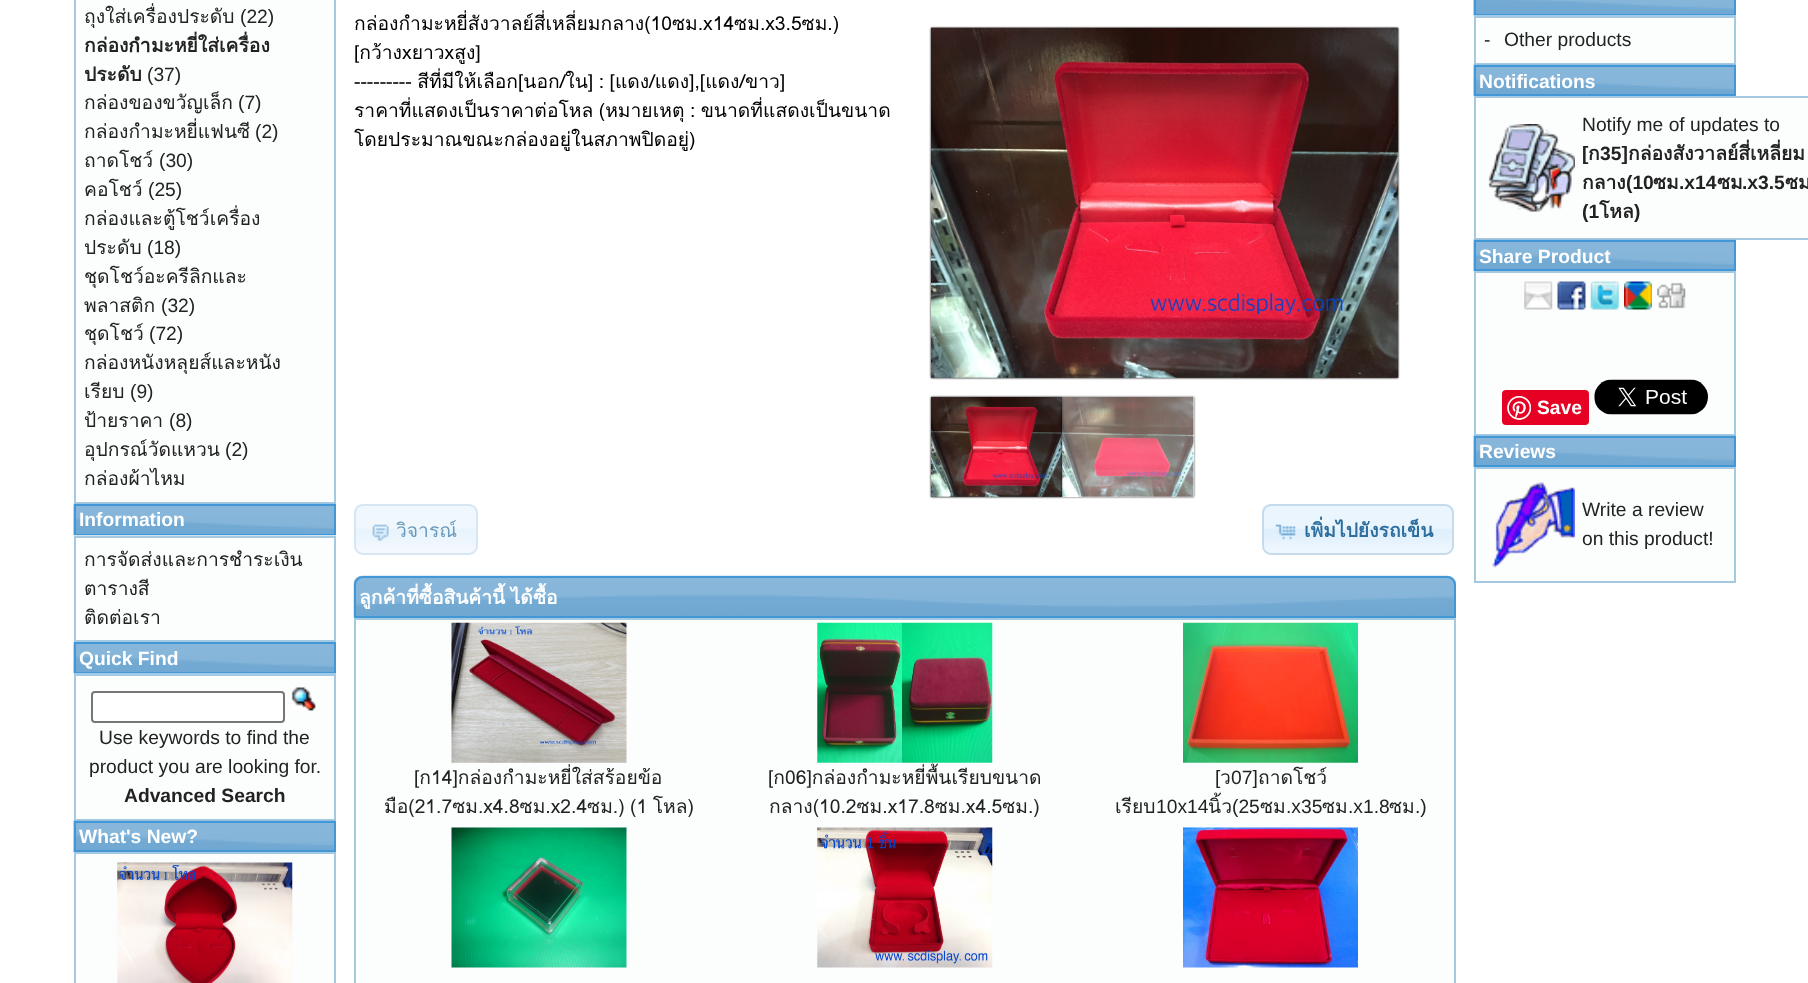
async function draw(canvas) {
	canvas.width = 1808;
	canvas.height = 983;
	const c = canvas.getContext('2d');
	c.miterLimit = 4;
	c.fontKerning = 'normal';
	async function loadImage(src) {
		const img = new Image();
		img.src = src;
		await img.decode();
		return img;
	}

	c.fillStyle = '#fff';
	c.fillRect(0, 0, 1808, 983);
	c.fillStyle = '#fcfdfd';
	c.beginPath();
	c.rect(75, -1, 260, 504);
	c.fill();
	c.strokeStyle = '#a6c9e2';
	c.lineWidth = 2;
	c.stroke();
	c.font = '19.25px Loma';
	c.fillStyle = '#222';
	c.fillText('ถุงใส่เครื่องประดับ', 84, 23);
	c.font = '19.25px Liberation Sans';
	c.fillText('(22)', 240, 23);
	c.font = 'bold 19.25px Loma';
	c.fillText('กล่องกำมะหยี่ใส่เครื่อง', 84, 52);
	c.fillText('ประดับ', 84, 81);
	c.font = '19.25px Liberation Sans';
	c.fillText('(37)', 147, 81);
	c.font = '19.25px Loma';
	c.fillText('กล่องของขวัญเล็ก', 84, 109);
	c.font = '19.25px Liberation Sans';
	c.fillText('(7)', 238, 109);
	c.font = '19.25px Loma';
	c.fillText('กล่องกำมะหยี่แฟนซี', 84, 138);
	c.font = '19.25px Liberation Sans';
	c.fillText('(2)', 255, 138);
	c.font = '19.25px Loma';
	c.fillText('ถาดโชว์', 84, 167);
	c.font = '19.25px Liberation Sans';
	c.fillText('(30)', 159, 167);
	c.font = '19.25px Loma';
	c.fillText('คอโชว์', 84, 196);
	c.font = '19.25px Liberation Sans';
	c.fillText('(25)', 148, 196);
	c.font = '19.25px Loma';
	c.fillText('กล่องและตู้โชว์เครื่อง', 84, 225);
	c.fillText('ประดับ', 84, 254);
	c.font = '19.25px Liberation Sans';
	c.fillText('(18)', 147, 254);
	c.font = '19.25px Loma';
	c.fillText('ชุดโชว์อะครีลิกและ', 84, 283);
	c.fillText('พลาสติก', 84, 312);
	c.font = '19.25px Liberation Sans';
	c.fillText('(32)', 161, 312);
	c.font = '19.25px Loma';
	c.fillText('ชุดโชว์', 84, 340);
	c.font = '19.25px Liberation Sans';
	c.fillText('(72)', 149, 340);
	c.font = '19.25px Loma';
	c.fillText('กล่องหนังหลุยส์และหนัง', 84, 369);
	c.fillText('เรียบ', 84, 398);
	c.font = '19.25px Liberation Sans';
	c.fillText('(9)', 130, 398);
	c.font = '19.25px Loma';
	c.fillText('ป้ายราคา', 84, 427);
	c.font = '19.25px Liberation Sans';
	c.fillText('(8)', 169, 427);
	c.font = '19.25px Loma';
	c.fillText('อุปกรณ์วัดแหวน', 84, 456);
	c.font = '19.25px Liberation Sans';
	c.fillText('(2)', 225, 456);
	c.font = '19.25px Loma';
	c.fillText('กล่องผ้าไหม', 84, 485);
	c.drawImage(await loadImage('img1.png'), 73, 503, 263, 33);
	c.strokeStyle = '#4297d7';
	c.strokeRect(75, 505, 260, 30);
	c.font = 'bold 19.25px Liberation Sans';
	c.fillStyle = '#fff';
	c.fillText('Information', 79, 526);
	c.fillStyle = '#fcfdfd';
	c.beginPath();
	c.rect(75, 537, 260, 104);
	c.fill();
	c.strokeStyle = '#a6c9e2';
	c.stroke();
	c.drawImage(await loadImage('img2.png'), 73, 535, 263, 1);
	c.font = '19.25px Loma';
	c.fillStyle = '#222';
	for (const [text, x, y] of [
		['การจัดส่งและการชำระเงิน', 84, 566],
		['ตารางสี', 84, 595],
		['ติดต่อเรา', 84, 624],
	]) {
		c.fillText(text, x, y);
	}
	c.drawImage(await loadImage('img3.png'), 73, 642, 261, 32);
	c.strokeStyle = '#4297d7';
	c.strokeRect(75, 643, 260, 30);
	c.font = 'bold 19.25px Liberation Sans';
	c.fillStyle = '#fff';
	c.fillText('Quick Find', 79, 665);
	c.fillStyle = '#fcfdfd';
	c.beginPath();
	c.rect(75, 675, 260, 145);
	c.fill();
	c.strokeStyle = '#a6c9e2';
	c.stroke();
	c.drawImage(await loadImage('img4.png'), 73, 673, 263, 1);
	c.fillStyle = '#fff';
	c.beginPath();
	c.roundRect(92, 692, 192, 30, 3);
	c.fill();
	c.strokeStyle = '#767676';
	c.stroke();
	c.drawImage(await loadImage('img5.png'), 291, 687, 25, 24);
	c.font = '19.25px Liberation Sans';
	c.fillStyle = '#222';
	c.fillText('Use keywords to find the', 99, 744);
	c.fillText('product you are looking for.', 89, 773);
	c.font = 'bold 19.25px Liberation Sans';
	c.fillText('Advanced Search', 124, 802);
	c.drawImage(await loadImage('img6.png'), 73, 820, 263, 32);
	c.strokeStyle = '#4297d7';
	c.strokeRect(75, 822, 260, 29);
	c.fillStyle = '#fff';
	c.fillText('What\'s New?', 79, 843);
	c.fillStyle = '#fcfdfd';
	c.beginPath();
	c.rect(75, 853, 260, 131);
	c.fill();
	c.strokeStyle = '#a6c9e2';
	c.stroke();
	c.drawImage(await loadImage('img7.png'), 117, 862, 176, 121);
	c.font = '19.25px Loma';
	c.fillStyle = '#000';
	c.fillText('กล่องกำมะหยี่สังวาลย์สี่เหลี่ยมกลาง(10ซม.x14ซม.x3.5ซม.)', 354, 30);
	c.filter = 'blur(1px)';
	c.beginPath();
	c.rect(931, 28, 467, 350);
	c.fill();
	c.filter = 'none';
	c.drawImage(await loadImage('img8.png'), 931, 27, 468, 351);
	c.filter = 'blur(1px)';
	c.beginPath();
	c.rect(931, 397, 131, 100);
	c.fill();
	c.filter = 'none';
	c.drawImage(await loadImage('img9.png'), 931, 397, 132, 100);
	c.save();
	c.beginPath();
	c.moveTo(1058, 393);
	c.lineTo(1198, 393);
	c.lineTo(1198, 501);
	c.lineTo(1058, 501);
	c.closePath();
	c.moveTo(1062, 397);
	c.lineTo(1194, 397);
	c.lineTo(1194, 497);
	c.lineTo(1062, 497);
	c.closePath();
	c.clip('evenodd');
	c.fillStyle = '#000000b3';
	c.filter = 'blur(1px)';
	c.beginPath();
	c.rect(1062, 397, 132, 100);
	c.fill();
	c.filter = 'none';
	c.restore();
	c.drawImage(await loadImage('img10.png'), 1062, 397, 132, 100);
	c.fillText('[กว้างxยาวxสูง]', 354, 59);
	c.wordSpacing = '-1px';
	c.fillText('--------- สีที่มีให้เลือก[นอก/ใน] : [แดง/แดง],[แดง/ขาว]', 354, 88);
	c.fillText('ราคาที่แสดงเป็นราคาต่อโหล (หมายเหตุ : ขนาดที่แสดงเป็นขนาด', 354, 117);
	c.wordSpacing = '0px';
	c.fillText('โดยประมาณขณะกล่องอยู่ในสภาพปิดอยู่)', 354, 146);
	c.drawImage(await loadImage('img11.png'), 353, 504, 125, 50);
	c.beginPath();
	c.roundRect(355, 505, 122, 49, 8);
	c.strokeStyle = '#d6e6f2';
	c.stroke();
	c.fillStyle = '#6d9abb';
	c.fillText('วิจารณ์', 396, 537);
	c.drawImage(await loadImage('img12.png'), 372, 524, 17, 17);
	c.drawImage(await loadImage('img13.png'), 1262, 504, 192, 51);
	c.beginPath();
	c.roundRect(1263, 505, 190, 49, 8);
	c.strokeStyle = '#c5dbec';
	c.stroke();
	c.drawImage(await loadImage('img14.png'), 1275, 524, 21, 16);
	c.font = 'bold 19.25px Loma';
	c.fillStyle = '#2e6e9e';
	c.fillText('เพิ่มไปยังรถเข็น', 1304, 537);
	c.drawImage(await loadImage('img15.png'), 353, 575, 1103, 43);
	c.beginPath();
	c.roundRect(355, 577, 1100, 40, [8, 8, 0, 0]);
	c.strokeStyle = '#4297d7';
	c.stroke();
	c.wordSpacing = '-1px';
	c.fillStyle = '#fff';
	c.fillText('ลูกค้าที่ซื้อสินค้านี้ ได้ซื้อ', 359, 604);
	c.fillStyle = '#fcfdfd';
	c.beginPath();
	c.rect(355, 619, 1100, 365);
	c.fill();
	c.strokeStyle = '#a6c9e2';
	c.stroke();
	c.drawImage(await loadImage('img16.png'), 451, 622, 176, 141);
	c.wordSpacing = '0px';
	c.font = '19.25px Loma';
	c.fillStyle = '#222';
	c.fillText('[ก14]กล่องกำมะหยี่ใส่สร้อยข้อ', 414, 784);
	c.wordSpacing = '-1px';
	c.fillText('มือ(21.7ซม.x4.8ซม.x2.4ซม.) (1 โหล)', 384, 813);
	c.drawImage(await loadImage('img17.png'), 817, 622, 176, 141);
	c.wordSpacing = '0px';
	c.fillText('[ก06]กล่องกำมะหยี่พื้นเรียบขนาด', 768, 784);
	c.fillText('กลาง(10.2ซม.x17.8ซม.x4.5ซม.)', 769, 813);
	c.drawImage(await loadImage('img18.png'), 1183, 622, 175, 141);
	c.font = '19.25px Liberation Sans';
	c.fillText('[', 1215, 784);
	c.font = '19.25px Loma';
	c.fillText('ว', 1220, 784);
	c.font = '19.25px Liberation Sans';
	c.fillText('07]', 1231, 784);
	c.font = '19.25px Loma';
	c.fillText('ถาดโชว์', 1258, 784);
	c.fillText('เรียบ', 1115, 813);
	c.font = '19.25px Liberation Sans';
	c.fillText('10x14', 1156, 813);
	c.font = '19.25px Loma';
	c.fillText('นิ้ว', 1208, 813);
	c.font = '19.25px Liberation Sans';
	c.fillText('(25', 1232, 813);
	c.font = '19.25px Loma';
	c.fillText('ซม', 1260, 813);
	c.font = '19.25px Liberation Sans';
	c.fillText('.x35', 1286, 813);
	c.font = '19.25px Loma';
	c.fillText('ซม', 1322, 813);
	c.font = '19.25px Liberation Sans';
	c.fillText('.x1.8', 1348, 813);
	c.font = '19.25px Loma';
	c.fillText('ซม', 1389, 813);
	c.font = '19.25px Liberation Sans';
	c.fillText('.)', 1415, 813);
	c.drawImage(await loadImage('img19.png'), 451, 827, 176, 141);
	c.drawImage(await loadImage('img20.png'), 817, 827, 176, 141);
	c.drawImage(await loadImage('img21.png'), 1183, 827, 175, 141);
	c.drawImage(await loadImage('img22.png'), 1473, 0, 261, 16);
	c.strokeStyle = '#4297d7';
	c.strokeRect(1475, -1, 260, 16);
	c.fillStyle = '#fcfdfd';
	c.beginPath();
	c.rect(1475, 17, 260, 47);
	c.fill();
	c.strokeStyle = '#a6c9e2';
	c.stroke();
	c.drawImage(await loadImage('img23.png'), 1473, 15, 263, 1);
	c.fillStyle = '#222';
	c.fillText('-', 1484, 46);
	c.fillText('Other products', 1504, 46);
	c.drawImage(await loadImage('img6.png'), 1473, 64, 263, 32);
	c.strokeStyle = '#4297d7';
	c.strokeRect(1475, 66, 260, 29);
	c.font = 'bold 19.25px Liberation Sans';
	c.fillStyle = '#fff';
	c.fillText('Notifications', 1479, 88);
	c.fillStyle = '#fcfdfd';
	c.beginPath();
	c.rect(1475, 97, 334, 142);
	c.fill();
	c.strokeStyle = '#a6c9e2';
	c.stroke();
	c.drawImage(await loadImage('img24.png'), 1488, 124, 87, 88);
	c.font = '19.25px Liberation Sans';
	c.fillStyle = '#222';
	c.fillText('Notify me of updates to', 1582, 131);
	c.font = 'bold 19.25px Liberation Sans';
	c.fillText('[', 1582, 160);
	c.font = 'bold 19.25px Loma';
	c.fillText('ก', 1588, 160);
	c.font = 'bold 19.25px Liberation Sans';
	c.fillText('35]', 1600, 160);
	c.font = 'bold 19.25px Loma';
	c.fillText('กล่องสังวาลย์สี่เหลี่ยม', 1628, 160);
	c.fillText('กลาง', 1582, 189);
	c.font = 'bold 19.25px Liberation Sans';
	c.fillText('(10', 1626, 189);
	c.font = 'bold 19.25px Loma';
	c.fillText('ซม', 1653, 189);
	c.font = 'bold 19.25px Liberation Sans';
	c.fillText('.x14', 1679, 189);
	c.font = 'bold 19.25px Loma';
	c.fillText('ซม', 1717, 189);
	c.font = 'bold 19.25px Liberation Sans';
	c.fillText('.x3.5', 1742, 189);
	c.font = 'bold 19.25px Loma';
	c.fillText('ซม', 1785, 189);
	c.font = 'bold 19.25px Liberation Sans';
	c.fillText('(1', 1582, 218);
	c.font = 'bold 19.25px Loma';
	c.fillText('โหล', 1599, 218);
	c.font = 'bold 19.25px Liberation Sans';
	c.fillText(')', 1634, 218);
	c.drawImage(await loadImage('img6.png'), 1473, 239, 263, 32);
	c.strokeStyle = '#4297d7';
	c.strokeRect(1475, 241, 260, 29);
	c.fillStyle = '#fff';
	c.fillText('Share Product', 1479, 263);
	c.fillStyle = '#fcfdfd';
	c.beginPath();
	c.rect(1475, 272, 260, 163);
	c.fill();
	c.strokeStyle = '#a6c9e2';
	c.stroke();
	c.drawImage(await loadImage('img25.png'), 1524, 281, 29, 29);
	c.drawImage(await loadImage('img26.png'), 1557, 281, 29, 29);
	c.drawImage(await loadImage('img27.png'), 1590, 281, 29, 29);
	c.drawImage(await loadImage('img28.png'), 1624, 281, 28, 29);
	c.drawImage(await loadImage('img29.png'), 1657, 282, 29, 27);
	c.fillStyle = '#e60023';
	c.beginPath();
	c.roundRect(1502, 390, 87, 35, 4);
	c.fill();
	c.drawImage(await loadImage('img30.png'), 1507, 396, 24, 24);
	c.fillStyle = '#fff';
	c.fillText('Save', 1537, 414);
	c.drawImage(await loadImage('img31.png'), 1594, 379, 114, 36);
	c.drawImage(await loadImage('img6.png'), 1473, 435, 263, 32);
	c.strokeStyle = '#4297d7';
	c.strokeRect(1475, 437, 260, 29);
	c.fillText('Reviews', 1479, 458);
	c.fillStyle = '#fcfdfd';
	c.beginPath();
	c.rect(1475, 468, 260, 114);
	c.fill();
	c.strokeStyle = '#a6c9e2';
	c.stroke();
	c.drawImage(await loadImage('img32.png'), 1492, 482, 83, 86);
	c.font = '19.25px Liberation Sans';
	c.fillStyle = '#222';
	c.fillText('Write a review', 1582, 516);
	c.fillText('on this product!', 1582, 545);
}

draw(document.querySelector('canvas'));
